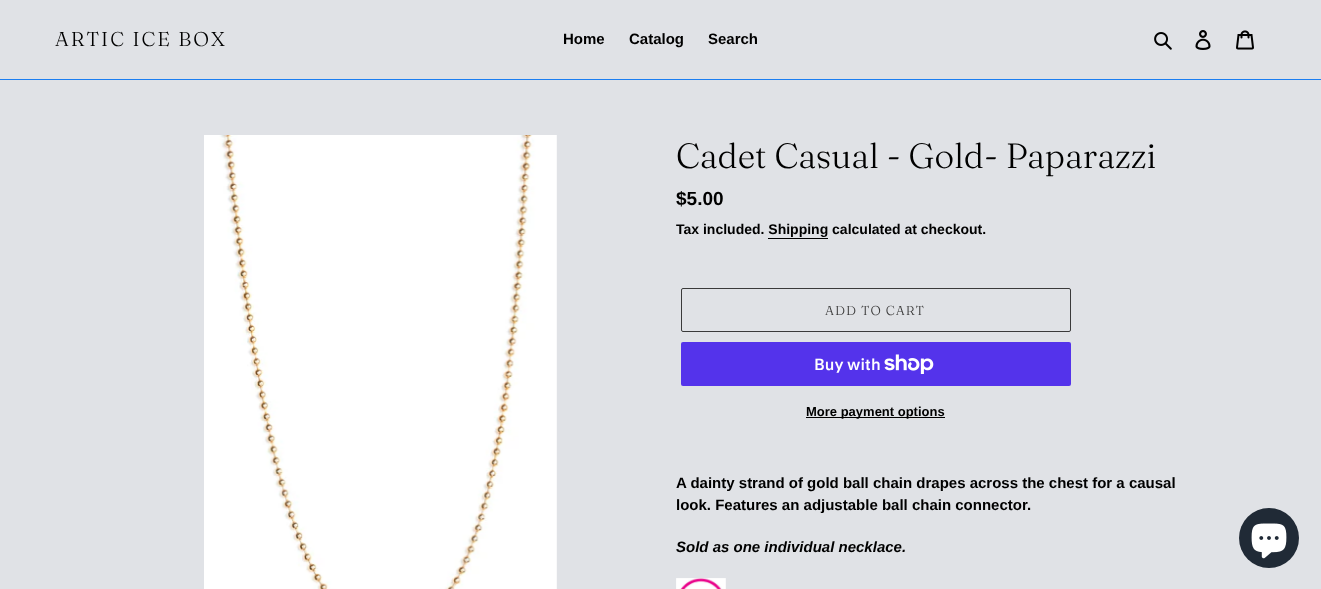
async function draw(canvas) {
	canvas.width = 1321;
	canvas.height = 589;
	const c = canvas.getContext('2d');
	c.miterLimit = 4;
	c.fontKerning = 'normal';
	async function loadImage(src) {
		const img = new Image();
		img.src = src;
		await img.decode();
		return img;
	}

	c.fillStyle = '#e0e2e6';
	c.fillRect(0, 0, 1321, 589);
	c.fillStyle = '#1b7ef1';
	c.fillRect(0, 79, 1321, 1);
	c.letterSpacing = '2px';
	c.font = '300 20px "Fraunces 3"';
	c.fillStyle = '#000';
	c.fillText('ARTIC ICE BOX', 55, 46);
	c.letterSpacing = '0px';
	c.font = 'bold 15px Liberation Sans';
	for (const [text, x, y] of [
		['Home', 563, 44],
		['Catalog', 629, 44],
		['Search', 708, 44],
	]) {
		c.fillText(text, x, y);
	}
	c.drawImage(await loadImage('img1.png'), 1154, 32, 18, 18);
	c.drawImage(await loadImage('img2.png'), 1195, 30, 16, 20);
	c.drawImage(await loadImage('img3.png'), 1236, 30, 18, 20);
	c.drawImage(await loadImage('img4.png'), 204, 135, 353, 454);
	c.font = '300 35px Fraunces';
	c.fillText('Cadet Casual - Gold- Paparazzi', 676, 168);
	c.font = 'bold 19px Liberation Sans';
	c.fillText('$5.00', 676, 205);
	c.font = 'bold 14px Liberation Sans';
	c.fillText('Tax included. Shipping calculated at checkout.', 676, 234);
	c.fillRect(768, 238, 60, 1);
	c.beginPath();
	c.roundRect(681.5, 288.5, 389, 43, 1.5);
	c.strokeStyle = '#3a3a3a';
	c.stroke();
	c.letterSpacing = '1px';
	c.font = '300 13px "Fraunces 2"';
	c.fillStyle = '#3a3a3a';
	c.fillText('ADD TO CART', 825, 315);
	c.fillStyle = '#5433eb';
	c.beginPath();
	c.roundRect(681, 342, 390, 44, 2);
	c.fill();
	c.letterSpacing = '0px';
	c.font = '600 16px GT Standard';
	c.fillStyle = '#fff';
	c.fillText('Buy with', 814, 370);
	c.drawImage(await loadImage('img5.png'), 884, 354, 50, 20);
	c.fillStyle = '#000';
	c.fillRect(806, 417, 139, 1);
	c.font = 'bold 13px Liberation Sans';
	c.fillText('More payment options', 806, 416);
	c.font = 'bold 15px Liberation Sans';
	c.fillText('A dainty strand of gold ball chain drapes across the chest for a causal', 676, 488);
	c.fillText('look. Features an adjustable ball chain connector.', 676, 510);
	c.font = 'italic bold 15px Liberation Sans';
	c.fillText('Sold as one individual necklace.', 676, 552);
	c.drawImage(await loadImage('img6.png'), 676, 578, 50, 11);
	c.fillStyle = '#202a36';
	c.beginPath();
	c.arc(1269, 538, 30, 0, 2 * Math.PI);
	c.fill();
	c.drawImage(await loadImage('img7.png'), 1251, 523, 36, 36);
}

draw(document.querySelector('canvas'));
